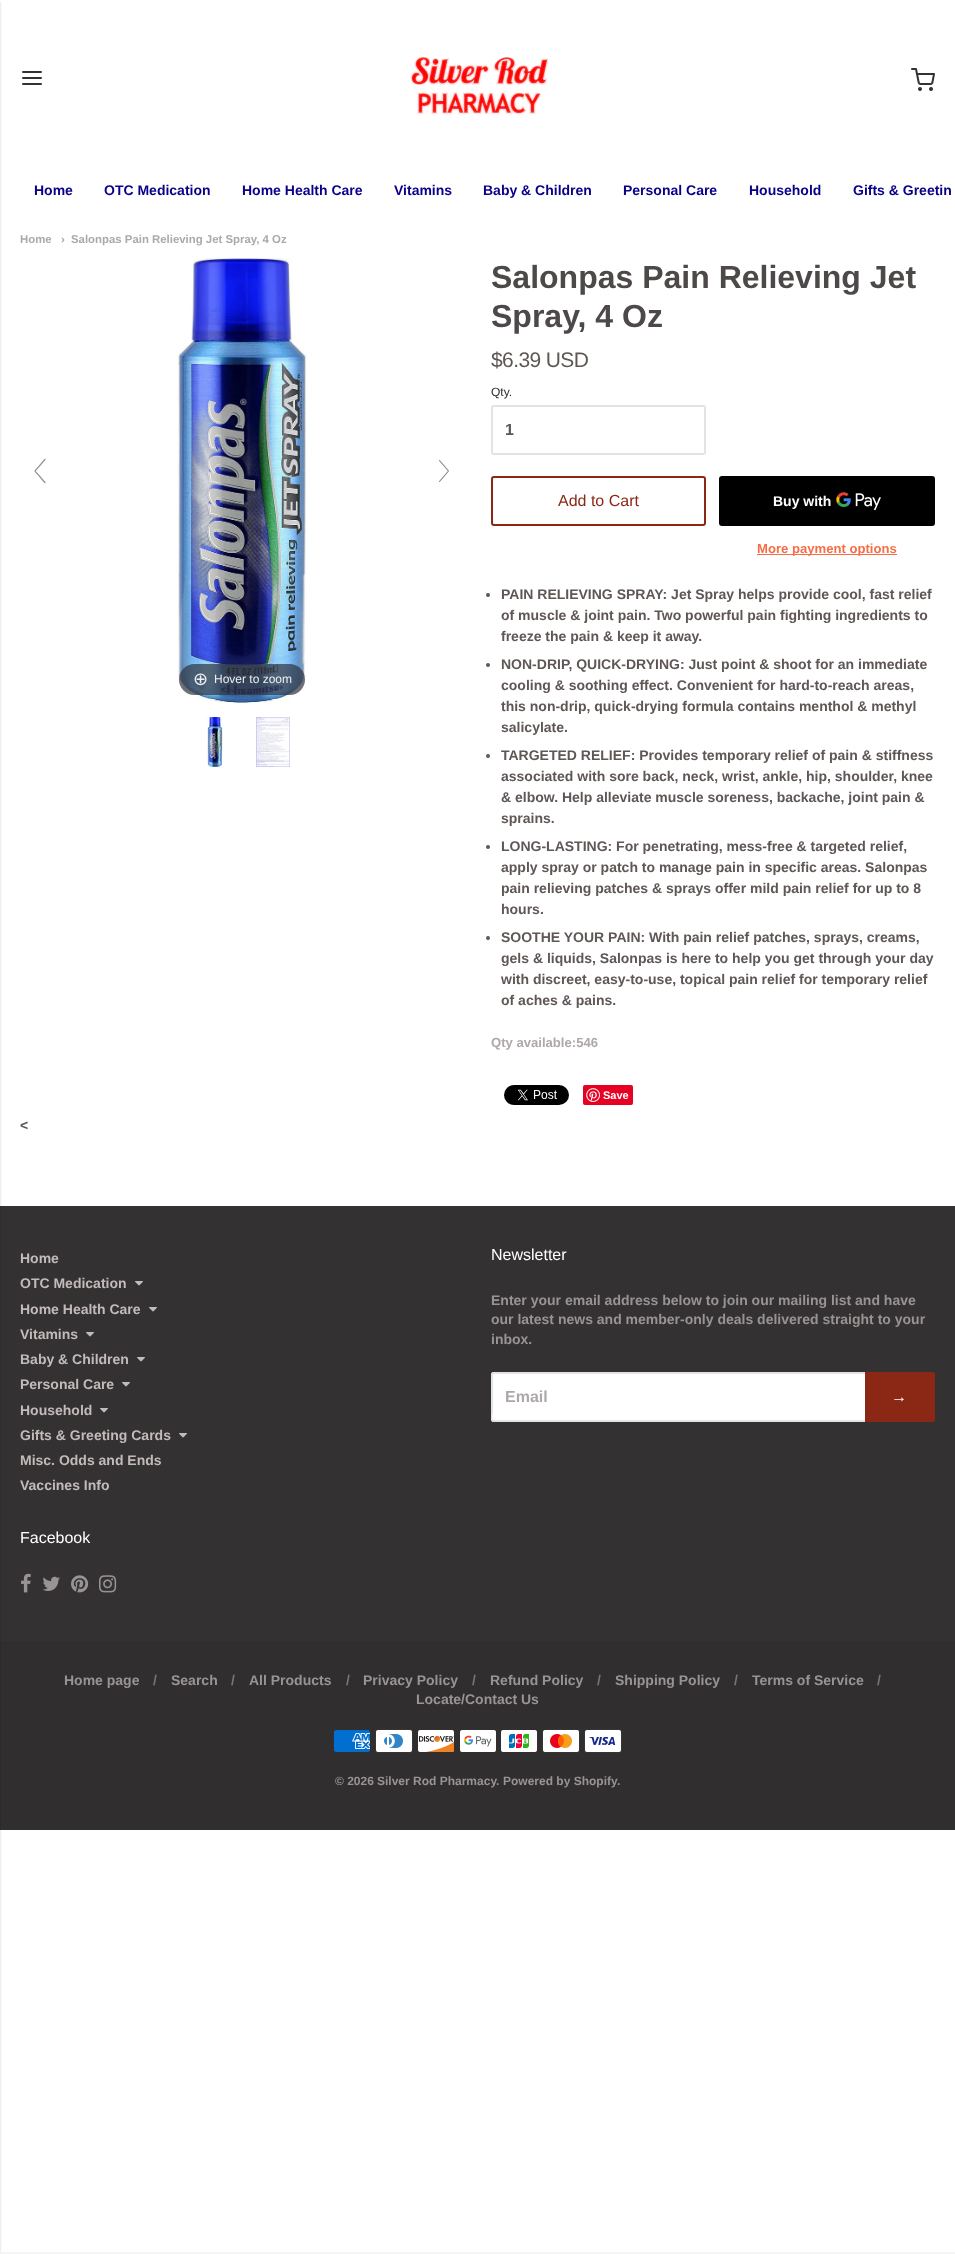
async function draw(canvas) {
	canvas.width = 955;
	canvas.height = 2254;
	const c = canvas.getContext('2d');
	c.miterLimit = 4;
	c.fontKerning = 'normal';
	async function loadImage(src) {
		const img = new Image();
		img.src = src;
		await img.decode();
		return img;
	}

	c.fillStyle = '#fff';
	c.fillRect(0, 0, 955, 2254);
	c.fillStyle = '#333132';
	c.fillRect(0, 1206, 955, 435);
	c.fillStyle = '#302e2f';
	c.fillRect(0, 1641, 955, 189);
	c.fillStyle = '#00000033';
	c.filter = 'blur(1px)';
	c.beginPath();
	c.rect(-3, 2, 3, 2250);
	c.fill();
	c.filter = 'none';
	c.beginPath();
	c.moveTo(23, 78);
	c.lineTo(41, 78);
	c.moveTo(23, 72);
	c.lineTo(41, 72);
	c.moveTo(23, 84);
	c.lineTo(41, 84);
	c.strokeStyle = '#333132';
	c.lineWidth = 2;
	c.lineCap = 'round';
	c.lineJoin = 'round';
	c.stroke();
	c.drawImage(await loadImage('img1.png'), 410, 57, 138, 58);
	c.drawImage(await loadImage('img2.png'), 911, 68, 24, 23);
	c.font = 'bold 14px Liberation Sans';
	c.fillStyle = '#090289';
	for (const [text, x, y] of [
		['Home', 34, 195],
		['OTC Medication', 104, 195],
		['Home Health Care', 242, 195],
		['Vitamins', 394, 195],
		['Baby & Children', 483, 195],
		['Personal Care', 623, 195],
		['Household', 749, 195],
		['Gifts & Greetin', 853, 195],
	]) {
		c.fillText(text, x, y);
	}
	c.font = 'bold 11.4px Liberation Sans';
	c.fillStyle = '#aea8a8';
	for (const [text, x, y] of [
		['Home', 20, 243],
		['›', 61, 243],
		['Salonpas Pain Relieving Jet Spray, 4 Oz', 71, 243],
	]) {
		c.fillText(text, x, y);
	}
	c.drawImage(await loadImage('img3.png'), 34, 458, 12, 26);
	c.drawImage(await loadImage('img4.png'), 439, 459, 10, 24);
	c.drawImage(await loadImage('img5.png'), 177, 258, 131, 445);
	c.fillStyle = '#31333db3';
	c.beginPath();
	c.roundRect(179, 664, 126, 31, 15.5);
	c.fill();
	c.font = '18px DejaVu Sans';
	c.fillStyle = '#eee';
	c.fillText('⊕', 193, 685);
	c.font = '12px Liberation Sans';
	c.fillText('Hover to zoom', 214, 683);
	c.drawImage(await loadImage('img6.png'), 206, 717, 17, 50);
	c.drawImage(await loadImage('img7.png'), 256, 717, 34, 50);
	c.font = 'bold 32px Liberation Sans';
	c.fillStyle = '#4e4949';
	c.fillText('Salonpas Pain Relieving Jet', 491, 288);
	c.fillText('Spray, 4 Oz', 491, 327);
	c.letterSpacing = '-0.6px';
	c.font = '21px Liberation Sans';
	c.fillStyle = '#5f5755';
	c.fillText('$6.39 USD', 491, 367);
	c.letterSpacing = '0px';
	c.font = '12px Liberation Sans';
	c.fillStyle = '#2a2b2b';
	c.fillText('Qty.', 491, 396);
	c.beginPath();
	c.roundRect(492, 406, 213, 48, 2);
	c.strokeStyle = '#e1e3e4';
	c.lineJoin = 'miter';
	c.stroke();
	c.font = 'bold 16px Liberation Sans';
	c.fillStyle = '#5f5755';
	c.fillText('1', 505, 435);
	c.beginPath();
	c.roundRect(492, 477, 213, 48, 2);
	c.strokeStyle = '#8b2715';
	c.stroke();
	c.font = '16px Liberation Sans';
	c.fillStyle = '#8b2715';
	c.fillText('Add to Cart', 558, 506);
	c.fillStyle = '#000';
	c.beginPath();
	c.roundRect(719, 476, 216, 50, 3);
	c.fill();
	c.font = 'bold 14px Liberation Sans';
	c.fillStyle = '#fff';
	c.fillText('Buy with', 773, 506);
	c.drawImage(await loadImage('img8.png'), 836, 492, 45, 18);
	c.fillStyle = '#f66d47';
	c.fillRect(757, 554, 140, 1);
	c.font = 'bold 13.1px Liberation Sans';
	c.fillText('More payment options', 757, 553);
	c.fillStyle = '#5f5755';
	c.beginPath();
	c.arc(488, 595, 2, 0, 2 * Math.PI);
	c.fill();
	c.font = 'bold 14px Liberation Sans';
	for (const [text, x, y] of [
		['PAIN RELIEVING SPRAY: Jet Spray helps provide cool, fast relief', 501, 599],
		['of muscle & joint pain. Two powerful pain fighting ingredients to', 501, 620],
		['freeze the pain & keep it away.', 501, 641],
	]) {
		c.fillText(text, x, y);
	}
	c.beginPath();
	c.arc(488, 665, 2, 0, 2 * Math.PI);
	c.fill();
	for (const [text, x, y] of [
		['NON-DRIP, QUICK-DRYING: Just point & shoot for an immediate', 501, 669],
		['cooling & soothing effect. Convenient for hard-to-reach areas,', 501, 690],
		['this non-drip, quick-drying formula contains menthol & methyl', 501, 711],
		['salicylate.', 501, 732],
	]) {
		c.fillText(text, x, y);
	}
	c.beginPath();
	c.arc(488, 756, 2, 0, 2 * Math.PI);
	c.fill();
	for (const [text, x, y] of [
		['TARGETED RELIEF: Provides temporary relief of pain & stiffness', 501, 760],
		['associated with sore back, neck, wrist, ankle, hip, shoulder, knee', 501, 781],
		['& elbow. Help alleviate muscle soreness, backache, joint pain &', 501, 802],
		['sprains.', 501, 823],
	]) {
		c.fillText(text, x, y);
	}
	c.beginPath();
	c.arc(488, 847, 2, 0, 2 * Math.PI);
	c.fill();
	for (const [text, x, y] of [
		['LONG-LASTING: For penetrating, mess-free & targeted relief,', 501, 851],
		['apply spray or patch to manage pain in specific areas. Salonpas', 501, 872],
		['pain relieving patches & sprays offer mild pain relief for up to 8', 501, 893],
		['hours.', 501, 914],
	]) {
		c.fillText(text, x, y);
	}
	c.beginPath();
	c.arc(488, 938, 2, 0, 2 * Math.PI);
	c.fill();
	for (const [text, x, y] of [
		['SOOTHE YOUR PAIN: With pain relief patches, sprays, creams,', 501, 942],
		['gels & liquids, Salonpas is here to help you get through your day', 501, 963],
		['with discreet, easy-to-use, topical pain relief for temporary relief', 501, 984],
		['of aches & pains.', 501, 1005],
	]) {
		c.fillText(text, x, y);
	}
	c.font = 'bold 13.1px Liberation Sans';
	c.fillStyle = '#aea8a8';
	c.fillText('Qty available:546', 491, 1047);
	c.drawImage(await loadImage('img9.png'), 504, 1085, 65, 20);
	c.fillStyle = '#e60023';
	c.beginPath();
	c.roundRect(583, 1085, 50, 20, 2);
	c.fill();
	c.drawImage(await loadImage('img10.png'), 586, 1088, 14, 14);
	c.font = 'bold 11px Liberation Sans';
	c.fillStyle = '#fff';
	c.fillText('Save', 603, 1099);
	c.font = 'bold 14px Liberation Sans';
	c.fillStyle = '#5f5755';
	c.fillText('<', 20, 1130);
	c.fillStyle = '#c2bbba';
	c.fillText('Home', 20, 1263);
	c.fillText('OTC Medication', 20, 1288);
	c.drawImage(await loadImage('img11.png'), 135, 1281, 8, 5);
	c.fillText('Home Health Care', 20, 1314);
	c.drawImage(await loadImage('img11.png'), 149, 1307, 8, 5);
	c.fillText('Vitamins', 20, 1339);
	c.drawImage(await loadImage('img11.png'), 86, 1332, 8, 5);
	c.fillText('Baby & Children', 20, 1364);
	c.drawImage(await loadImage('img11.png'), 137, 1357, 8, 5);
	c.fillText('Personal Care', 20, 1389);
	c.drawImage(await loadImage('img11.png'), 122, 1382, 8, 5);
	c.fillText('Household', 20, 1415);
	c.drawImage(await loadImage('img11.png'), 100, 1408, 8, 5);
	c.fillText('Gifts & Greeting Cards', 20, 1440);
	c.drawImage(await loadImage('img11.png'), 179, 1433, 8, 5);
	c.fillText('Misc. Odds and Ends', 20, 1465);
	c.fillText('Vaccines Info', 20, 1490);
	c.font = '16px Liberation Sans';
	c.fillStyle = '#fff';
	c.fillText('Newsletter', 491, 1260);
	c.font = 'bold 14px Liberation Sans';
	c.fillStyle = '#999493';
	for (const [text, x, y] of [
		['Enter your email address below to join our mailing list and have', 491, 1305],
		['our latest news and member-only deals delivered straight to your', 491, 1324],
		['inbox.', 491, 1344],
	]) {
		c.fillText(text, x, y);
	}
	c.fillStyle = '#fff';
	c.beginPath();
	c.roundRect(491, 1372, 374, 50, [3, 0, 0, 3]);
	c.fill();
	c.fillStyle = '#e1e3e4';
	c.beginPath();
	c.moveTo(494, 1372);
	c.lineTo(865, 1372);
	c.lineTo(865, 1422);
	c.lineTo(494, 1422);
	c.bezierCurveTo(492, 1422, 491, 1421, 491, 1419);
	c.lineTo(491, 1375);
	c.bezierCurveTo(491, 1373, 492, 1372, 494, 1372);
	c.closePath();
	c.moveTo(494, 1374);
	c.lineTo(865, 1374);
	c.lineTo(865, 1420);
	c.lineTo(493, 1420);
	c.bezierCurveTo(491, 1418, 493, 1414, 493, 1412);
	c.lineTo(493, 1375);
	c.closePath();
	c.fill('evenodd');
	c.font = 'bold 16px Liberation Sans';
	c.fillStyle = '#aea8a8';
	c.fillText('Email', 505, 1402);
	c.fillStyle = '#8b2715';
	c.beginPath();
	c.roundRect(865, 1372, 70, 50, [0, 3, 3, 0]);
	c.fill();
	c.beginPath();
	c.moveTo(865, 1372);
	c.lineTo(932, 1372);
	c.bezierCurveTo(934, 1372, 935, 1373, 935, 1375);
	c.lineTo(935, 1419);
	c.bezierCurveTo(935, 1421, 934, 1422, 932, 1422);
	c.lineTo(865, 1422);
	c.closePath();
	c.moveTo(865, 1374);
	c.lineTo(932, 1374);
	c.bezierCurveTo(933, 1374, 933, 1374, 933, 1375);
	c.lineTo(933, 1419);
	c.bezierCurveTo(933, 1420, 933, 1420, 932, 1420);
	c.lineTo(865, 1420);
	c.closePath();
	c.fill('evenodd');
	c.font = '16px Liberation Sans';
	c.fillStyle = '#fff';
	c.fillText('→', 891, 1402);
	c.fillText('Facebook', 20, 1543);
	c.drawImage(await loadImage('img12.png'), 21, 1573, 10, 20);
	c.drawImage(await loadImage('img13.png'), 42, 1576, 18, 15);
	c.drawImage(await loadImage('img14.png'), 71, 1575, 18, 18);
	c.drawImage(await loadImage('img15.png'), 99, 1575, 18, 18);
	c.font = 'bold 14px Liberation Sans';
	c.fillStyle = '#999493';
	c.fillText('Home page', 64, 1685);
	c.fillStyle = '#7a7575';
	c.fillText('/', 153, 1685);
	c.fillStyle = '#999493';
	c.fillText('Search', 171, 1685);
	c.fillStyle = '#7a7575';
	c.fillText('/', 231, 1685);
	c.fillStyle = '#999493';
	c.fillText('All Products', 249, 1685);
	c.fillStyle = '#7a7575';
	c.fillText('/', 346, 1685);
	c.fillStyle = '#999493';
	c.fillText('Privacy Policy', 363, 1685);
	c.fillStyle = '#7a7575';
	c.fillText('/', 472, 1685);
	c.fillStyle = '#999493';
	c.fillText('Refund Policy', 490, 1685);
	c.fillStyle = '#7a7575';
	c.fillText('/', 597, 1685);
	c.fillStyle = '#999493';
	c.fillText('Shipping Policy', 615, 1685);
	c.fillStyle = '#7a7575';
	c.fillText('/', 734, 1685);
	c.fillStyle = '#999493';
	c.fillText('Terms of Service', 752, 1685);
	c.fillStyle = '#7a7575';
	c.fillText('/', 877, 1685);
	c.fillStyle = '#999493';
	c.fillText('Locate/Contact Us', 416, 1704);
	c.drawImage(await loadImage('img16.png'), 334, 1730, 36, 22);
	c.drawImage(await loadImage('img17.png'), 375, 1729, 38, 24);
	c.drawImage(await loadImage('img18.png'), 418, 1730, 36, 22);
	c.drawImage(await loadImage('img19.png'), 460, 1730, 36, 22);
	c.drawImage(await loadImage('img20.png'), 501, 1730, 36, 22);
	c.drawImage(await loadImage('img21.png'), 542, 1729, 38, 24);
	c.drawImage(await loadImage('img22.png'), 584, 1729, 38, 24);
	c.font = 'bold 12px Liberation Sans';
	for (const [text, x, y] of [
		['© 2026', 335, 1785],
		['Silver Rod Pharmacy', 377, 1785],
		['.', 496, 1785],
		['Powered by Shopify', 503, 1785],
		['.', 617, 1785],
	]) {
		c.fillText(text, x, y);
	}
	c.fillStyle = '#f5f5f5';
	c.fillRect(0, 2252, 955, 2);
}

draw(document.querySelector('canvas'));
